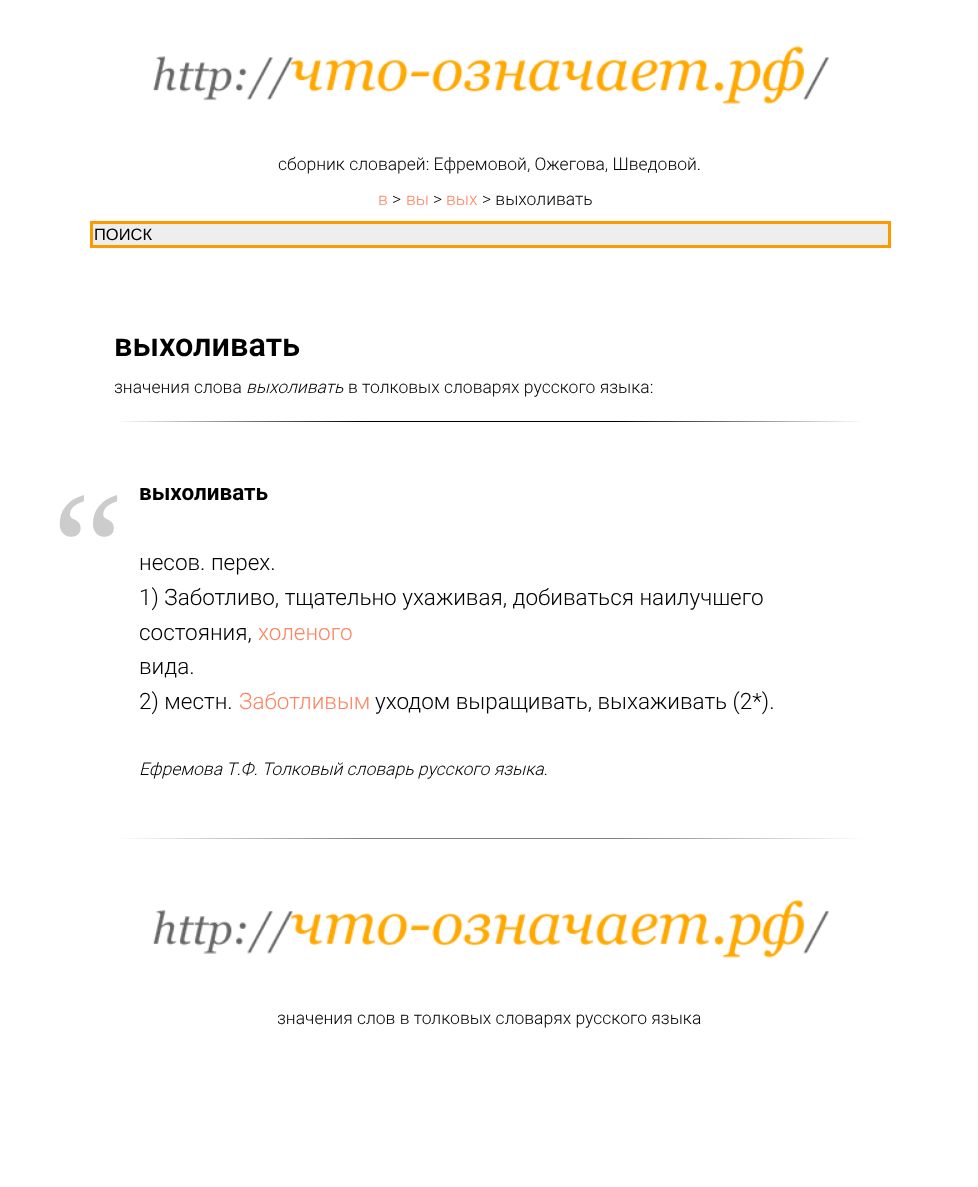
async function draw(canvas) {
	canvas.width = 978;
	canvas.height = 1187;
	const c = canvas.getContext('2d');
	c.miterLimit = 4;
	c.fontKerning = 'normal';
	async function loadImage(src) {
		const img = new Image();
		img.src = src;
		await img.decode();
		return img;
	}
	let gradient;

	c.fillStyle = '#fff';
	c.fillRect(0, 0, 978, 1187);
	c.drawImage(await loadImage('img1.png'), 153, 46, 676, 58);
	c.font = '300 17.5px Roboto';
	c.fillStyle = '#000';
	c.fillText('сборник словарей: Ефремовой, Ожегова, Шведовой.', 278, 170);
	c.fillStyle = '#ff8562';
	c.fillText('в', 378, 205);
	c.fillStyle = '#000';
	c.fillText('>', 392, 205);
	c.fillStyle = '#ff8562';
	c.fillText('вы', 406, 205);
	c.fillStyle = '#000';
	c.fillText('>', 433, 205);
	c.fillStyle = '#ff8562';
	c.fillText('вых', 446, 205);
	c.fillStyle = '#000';
	c.fillText('> выхоливать', 482, 205);
	c.fillStyle = '#eee';
	c.beginPath();
	c.rect(91.5, 222.5, 798, 24);
	c.fill();
	c.strokeStyle = '#f90';
	c.lineWidth = 3;
	c.stroke();
	c.font = '16.5px Liberation Sans';
	c.fillStyle = '#000';
	c.fillText('ПОИСК', 94, 240);
	c.font = '600 32.5px Roboto';
	c.fillText('выхоливать', 114, 356);
	c.font = '300 17.5px Roboto';
	c.fillText('значения слова', 114, 393);
	c.font = 'italic 300 17.5px Roboto';
	c.fillText('выхоливать', 246, 393);
	c.font = '300 17.5px Roboto';
	c.fillText('в толковых словарях русского языка:', 348, 393);
	gradient = c.createLinearGradient(365, 422, 115, 422);
	gradient.addColorStop(0, '#000');
	gradient.addColorStop(1, '#fff');
	c.fillStyle = gradient;
	c.fillRect(115, 421, 250, 1);
	c.fillStyle = '#000';
	c.fillRect(365, 421, 250, 1);
	gradient = c.createLinearGradient(615, 422, 865, 422);
	gradient.addColorStop(0, '#000');
	gradient.addColorStop(1, '#fff');
	c.fillStyle = gradient;
	c.fillRect(615, 421, 250, 1);
	c.font = '162px Liberation Serif';
	c.fillStyle = '#ccc';
	c.fillText('“', 52, 603);
	c.font = 'bold 22.5px Roboto';
	c.fillStyle = '#000';
	c.fillText('выхоливать', 139, 500);
	c.font = '300 22.5px Roboto';
	for (const [text, x, y] of [
		['несов. перех.', 139, 570],
		['1) Заботливо, тщательно ухаживая, добиваться наилучшего', 139, 605],
		['состояния,', 139, 640],
	]) {
		c.fillText(text, x, y);
	}
	c.fillStyle = '#ff8562';
	c.fillText('холеного', 258, 640);
	c.fillStyle = '#000';
	c.fillText('вида.', 139, 674);
	c.fillText('2) местн.', 139, 709);
	c.fillStyle = '#ff8562';
	c.fillText('Заботливым', 239, 709);
	c.fillStyle = '#000';
	c.fillText('уходом выращивать, выхаживать (2*).', 375, 709);
	c.font = 'italic 300 17.5px Roboto';
	c.fillText('Ефремова Т.Ф. Толковый словарь русского языка.', 139, 775);
	gradient = c.createLinearGradient(365, 838, 115, 838);
	gradient.addColorStop(0, '#808080');
	gradient.addColorStop(1, '#fff');
	c.fillStyle = gradient;
	c.fillRect(115, 838, 250, 1);
	c.fillStyle = '#808080';
	c.fillRect(365, 838, 250, 1);
	gradient = c.createLinearGradient(615, 838, 865, 838);
	gradient.addColorStop(0, '#808080');
	gradient.addColorStop(1, '#fff');
	c.fillStyle = gradient;
	c.fillRect(615, 838, 250, 1);
	c.drawImage(await loadImage('img2.png'), 153, 899, 676, 59);
	c.font = '300 17.5px Roboto';
	c.fillStyle = '#000';
	c.fillText('значения слов в толковых словарях русского языка', 277, 1024);
}

draw(document.querySelector('canvas'));
